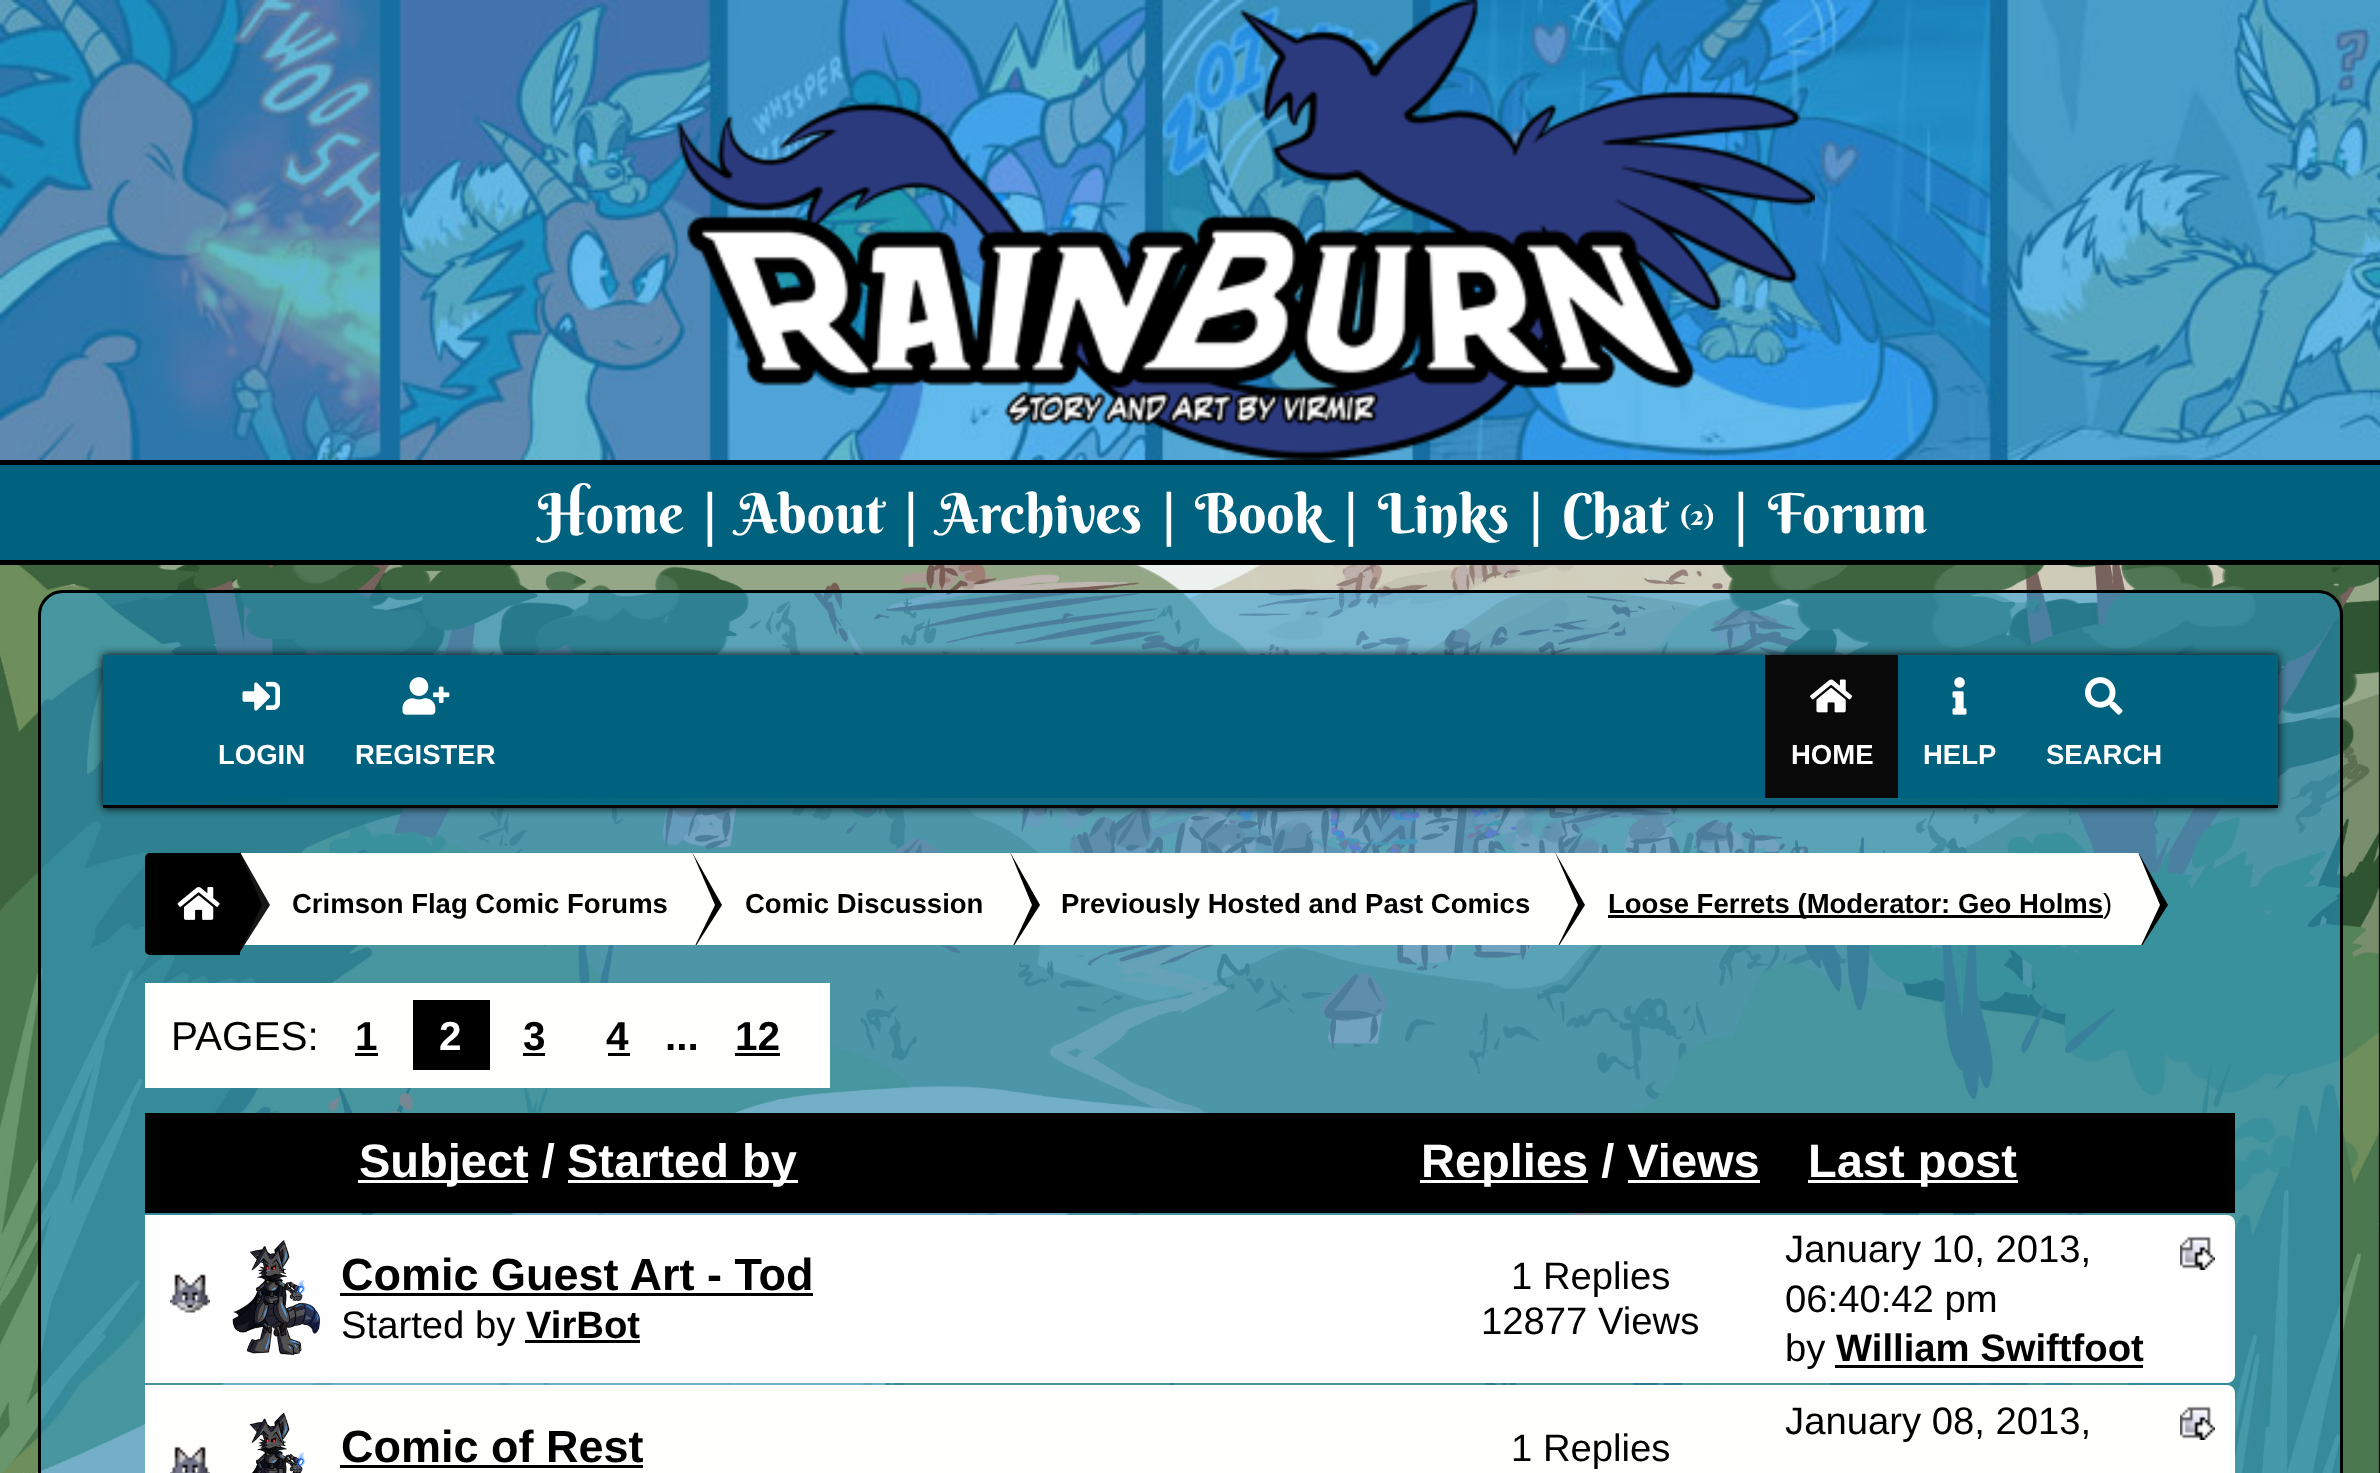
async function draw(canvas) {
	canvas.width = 2380;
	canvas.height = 1473;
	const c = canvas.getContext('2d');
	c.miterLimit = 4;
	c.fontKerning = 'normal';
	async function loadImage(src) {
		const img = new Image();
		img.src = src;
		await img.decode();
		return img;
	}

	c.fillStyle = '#fff';
	c.fillRect(0, 0, 2380, 1473);
	c.drawImage(await loadImage('img1.png'), 0, 565, 2380, 908);
	c.drawImage(await loadImage('img2.png'), 0, 0, 2380, 460);
	c.drawImage(await loadImage('img3.png'), 676, 0, 1139, 460);
	for (const [x, y, w, h, color] of [
		[0, 465, 2380, 95, '#00627e'],
		[0, 460, 2380, 5, '#000'],
		[0, 560, 2380, 5, '#000'],
	]) {
		c.fillStyle = color;
		c.fillRect(x, y, w, h);
	}
	c.font = '55px Berkshire Swash';
	c.fillStyle = '#fff';
	for (const [text, x, y] of [
		['Home', 538, 533],
		['|', 703, 533],
		['About', 737, 533],
		['|', 904, 533],
		['Archives', 938, 533],
		['|', 1162, 533],
		['Book', 1195, 533],
		['|', 1344, 533],
		['Links', 1378, 533],
		['|', 1529, 533],
		['Chat', 1562, 533],
	]) {
		c.fillText(text, x, y);
	}
	c.font = '27.5px Berkshire Swash';
	c.fillText('(2)', 1680, 525);
	c.font = '55px Berkshire Swash';
	c.fillText('|', 1734, 533);
	c.fillText('Forum', 1768, 533);
	c.fillStyle = '#209de480';
	c.beginPath();
	c.roundRect(39.5, 591.5, 2302, 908, 23.5);
	c.fill();
	c.strokeStyle = '#000';
	c.lineWidth = 3;
	c.stroke();
	c.fillStyle = '#000';
	c.filter = 'blur(5px)';
	c.beginPath();
	c.rect(103, 655, 2175, 153);
	c.fill();
	c.filter = 'none';
	c.fillStyle = '#00627e';
	c.fillRect(103, 655, 2175, 150);
	c.fillStyle = '#000';
	c.fillRect(103, 805, 2175, 3);
	c.drawImage(await loadImage('img4.png'), 242, 681, 38, 30);
	c.font = 'bold 27.5px Liberation Sans';
	c.fillStyle = '#fff';
	c.fillText('LOGIN', 218, 764);
	c.drawImage(await loadImage('img5.png'), 402, 677, 48, 38);
	c.fillText('REGISTER', 355, 764);
	c.fillStyle = '#090909';
	c.fillRect(1765, 655, 133, 143);
	c.drawImage(await loadImage('img6.png'), 1810, 679, 43, 34);
	c.fillStyle = '#fff';
	c.fillText('HOME', 1791, 764);
	c.drawImage(await loadImage('img7.png'), 1952, 677, 15, 38);
	c.fillText('HELP', 1923, 764);
	c.drawImage(await loadImage('img8.png'), 2085, 677, 38, 38);
	c.fillText('SEARCH', 2046, 764);
	c.drawImage(await loadImage('img9.png'), 137, 798, 2140, 7);
	c.fillStyle = '#fffffe';
	c.fillRect(240, 853, 1898, 92);
	c.fillStyle = '#171717';
	c.beginPath();
	c.moveTo(240, 952);
	c.lineTo(240, 852);
	c.lineTo(270, 905);
	c.closePath();
	c.fill();
	c.fillStyle = '#000001';
	c.beginPath();
	c.roundRect(145, 853, 95, 102, [5, 0, 0, 5]);
	c.fill();
	c.drawImage(await loadImage('img10.png'), 177, 887, 43, 33);
	c.beginPath();
	c.moveTo(240, 952);
	c.lineTo(240, 852);
	c.lineTo(262, 905);
	c.closePath();
	c.fill();
	c.save();
	c.beginPath();
	c.rect(240, 853, 1995, 92);
	c.clip();
	c.fillStyle = '#000';
	c.beginPath();
	c.moveTo(692, 952);
	c.lineTo(692, 852);
	c.lineTo(722, 905);
	c.closePath();
	c.fill();
	c.restore();
	c.fillStyle = '#000';
	c.fillText('Crimson Flag Comic Forums', 292, 913);
	c.save();
	c.beginPath();
	c.rect(240, 853, 1995, 92);
	c.clip();
	c.fillStyle = '#fffffe';
	c.beginPath();
	c.moveTo(692, 952);
	c.lineTo(692, 852);
	c.lineTo(715, 905);
	c.closePath();
	c.fill();
	c.fillStyle = '#000';
	c.beginPath();
	c.moveTo(1010, 952);
	c.lineTo(1010, 852);
	c.lineTo(1040, 905);
	c.closePath();
	c.fill();
	c.restore();
	c.fillText('Comic Discussion', 745, 913);
	c.save();
	c.beginPath();
	c.rect(240, 853, 1995, 92);
	c.clip();
	c.fillStyle = '#fffffe';
	c.beginPath();
	c.moveTo(1010, 952);
	c.lineTo(1010, 852);
	c.lineTo(1032, 905);
	c.closePath();
	c.fill();
	c.fillStyle = '#000';
	c.beginPath();
	c.moveTo(1555, 952);
	c.lineTo(1555, 852);
	c.lineTo(1585, 905);
	c.closePath();
	c.fill();
	c.restore();
	c.fillText('Previously Hosted and Past Comics', 1061, 913);
	c.save();
	c.beginPath();
	c.rect(240, 853, 1995, 92);
	c.clip();
	c.fillStyle = '#fffffe';
	c.beginPath();
	c.moveTo(1555, 952);
	c.lineTo(1555, 852);
	c.lineTo(1578, 905);
	c.closePath();
	c.fill();
	c.fillStyle = '#000';
	c.beginPath();
	c.moveTo(2138, 952);
	c.lineTo(2138, 852);
	c.lineTo(2168, 905);
	c.closePath();
	c.fill();
	c.restore();
	c.fillRect(1608, 915, 495, 3);
	c.fillText('Loose Ferrets (Moderator: Geo Holms', 1608, 913);
	c.font = '27.5px Liberation Sans';
	c.fillText(')', 2103, 913);
	c.save();
	c.beginPath();
	c.rect(240, 853, 1995, 92);
	c.clip();
	c.fillStyle = '#fffffe';
	c.beginPath();
	c.moveTo(2138, 952);
	c.lineTo(2138, 852);
	c.lineTo(2160, 905);
	c.closePath();
	c.fill();
	c.restore();
	c.fillStyle = '#fffffe';
	c.fillRect(145, 983, 685, 105);
	c.font = '40.5px Liberation Sans';
	c.fillStyle = '#000';
	c.fillText('PAGES:', 171, 1050);
	c.font = 'bold 40.5px Liberation Sans';
	c.fillText('1', 355, 1050);
	c.fillRect(355, 1053, 23, 3);
	c.fillStyle = '#000001';
	c.fillRect(413, 1000, 77, 70);
	c.fillStyle = '#fff';
	c.fillText('2', 439, 1050);
	c.fillStyle = '#000';
	c.fillText('3', 523, 1050);
	c.fillRect(523, 1053, 22, 3);
	c.fillText('4', 606, 1050);
	c.fillRect(608, 1053, 22, 3);
	c.fillText('...', 665, 1050);
	c.fillText('12', 735, 1050);
	for (const [x, y, w, h, color] of [
		[735, 1053, 45, 3, '#000'],
		[145, 1113, 2090, 100, '#000001'],
		[358, 1180, 170, 3, '#fff'],
	]) {
		c.fillStyle = color;
		c.fillRect(x, y, w, h);
	}
	c.font = 'bold 47px Liberation Sans';
	c.fillText('Subject /', 359, 1177);
	c.fillRect(568, 1180, 230, 3);
	c.fillText('Started by', 567, 1177);
	c.fillRect(1420, 1180, 168, 3);
	c.fillText('Replies / Views', 1421, 1177);
	c.fillRect(1628, 1180, 132, 3);
	c.fillRect(1808, 1180, 210, 3);
	c.fillText('Last post', 1808, 1177);
	c.fillStyle = '#fefefe';
	c.beginPath();
	c.roundRect(145, 1215, 2090, 168, 8);
	c.fill();
	c.fillStyle = '#fffffe';
	c.fillRect(145, 1215, 8, 168);
	c.drawImage(await loadImage('img11.png'), 170, 1274, 40, 39);
	c.drawImage(await loadImage('img12.png'), 232, 1240, 88, 115);
	c.font = 'bold 45px Liberation Sans';
	c.fillStyle = '#000';
	c.fillText('Comic Guest Art - Tod', 341, 1290);
	c.fillRect(340, 1293, 473, 3);
	c.font = '38.25px Liberation Sans';
	c.fillText('Started by', 341, 1338);
	c.font = 'bold 38.25px Liberation Sans';
	c.fillText('VirBot', 526, 1338);
	c.fillRect(525, 1340, 115, 3);
	c.font = '38.25px Liberation Sans';
	for (const [text, x, y] of [
		['1 Replies', 1511, 1289],
		['12877 Views', 1481, 1334],
		['January 10, 2013,', 1785, 1262],
	]) {
		c.fillText(text, x, y);
	}
	c.drawImage(await loadImage('img13.png'), 2180, 1236, 35, 34);
	c.fillText('06:40:42 pm', 1785, 1312);
	c.fillText('by', 1785, 1361);
	c.font = 'bold 38.25px Liberation Sans';
	c.fillText('William Swiftfoot', 1836, 1361);
	c.fillRect(1835, 1365, 308, 3);
	c.fillStyle = '#fffffe';
	c.beginPath();
	c.roundRect(145, 1385, 2090, 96, 8);
	c.fill();
	c.fillRect(145, 1385, 8, 8);
	c.drawImage(await loadImage('img14.png'), 170, 1446, 40, 27);
	c.drawImage(await loadImage('img15.png'), 249, 1412, 57, 61);
	c.font = 'bold 45px Liberation Sans';
	c.fillStyle = '#000';
	c.fillText('Comic of Rest', 341, 1462);
	c.fillRect(340, 1465, 303, 3);
	c.font = '38.25px Liberation Sans';
	c.fillText('1 Replies', 1511, 1461);
	c.fillText('January 08, 2013,', 1785, 1434);
	c.drawImage(await loadImage('img16.png'), 2180, 1406, 35, 34);
}

draw(document.querySelector('canvas'));
